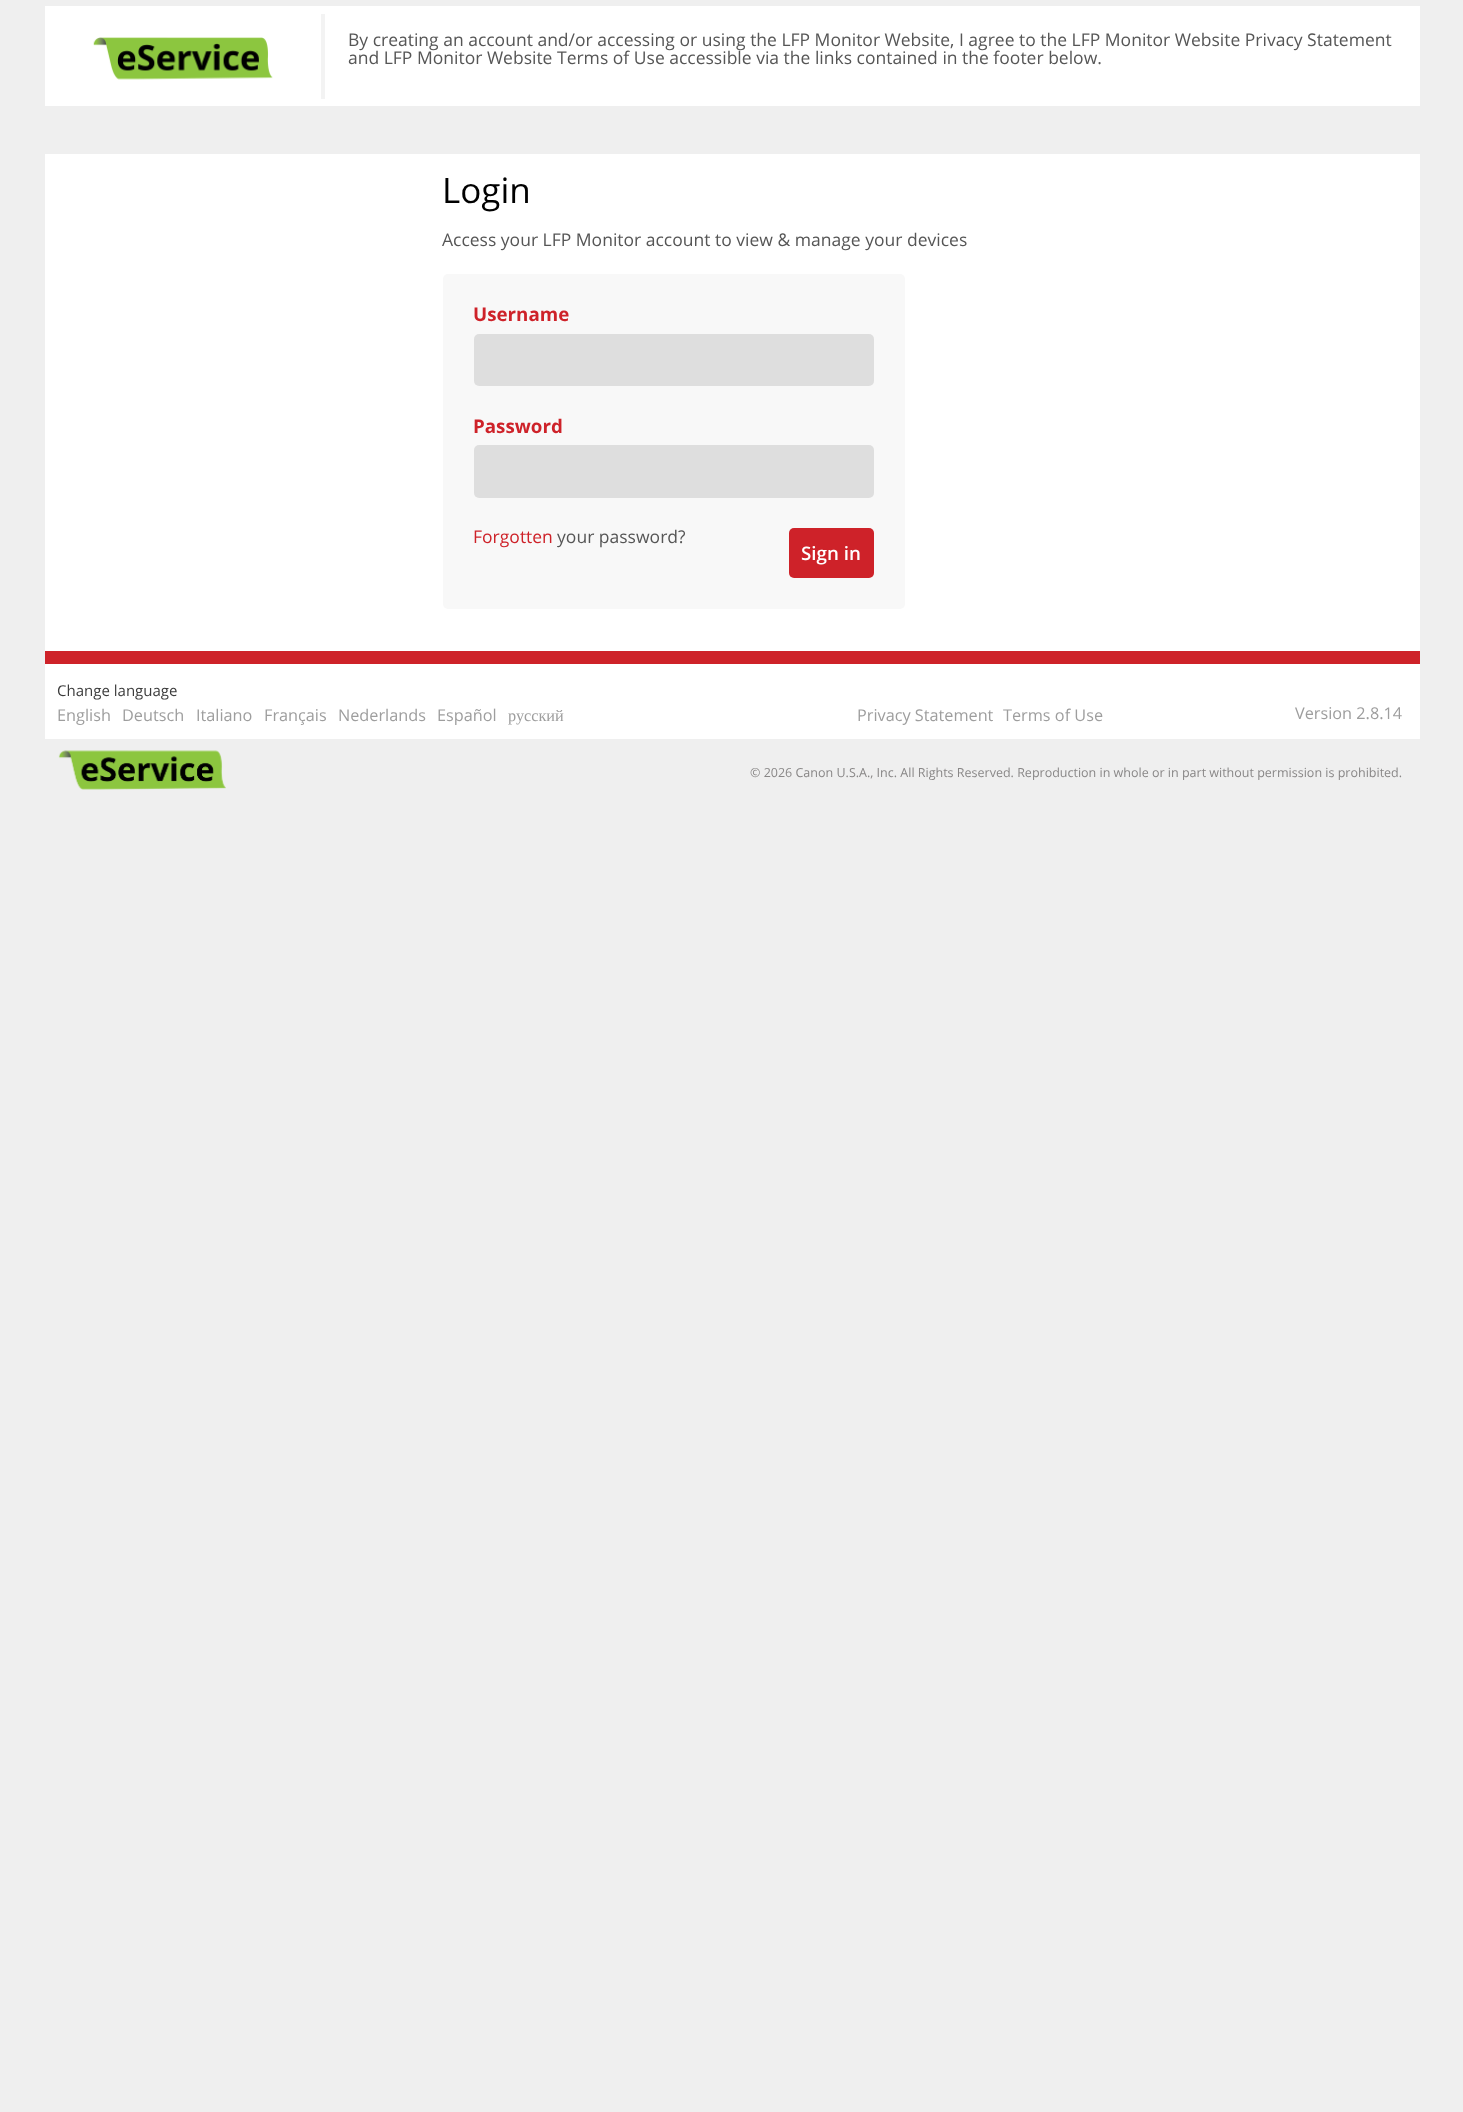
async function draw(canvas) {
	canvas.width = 1463;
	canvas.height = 2112;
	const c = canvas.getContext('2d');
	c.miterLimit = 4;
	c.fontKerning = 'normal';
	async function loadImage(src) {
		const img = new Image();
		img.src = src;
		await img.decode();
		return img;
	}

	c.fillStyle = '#efefef';
	c.fillRect(0, 0, 1463, 2112);
	c.fillStyle = '#fff';
	c.fillRect(45, 6, 1375, 100);
	c.fillStyle = '#f3f3f3';
	c.fillRect(321, 14, 4, 85);
	c.drawImage(await loadImage('img1.png'), 93, 37, 180, 43);
	c.font = '17.5px Open Sans';
	c.fillStyle = '#565656';
	c.fillText('By creating an account and/or accessing or using the LFP Monitor Website, I agree to the LFP Monitor Website Privacy Statement', 348, 46);
	c.fillText('and LFP Monitor Website Terms of Use accessible via the links contained in the footer below.', 348, 64);
	c.fillStyle = '#fff';
	c.fillRect(45, 154, 1375, 497);
	c.font = '35px Open Sans';
	c.fillStyle = '#000';
	c.fillText('Login', 442, 203);
	c.font = '17.5px Open Sans';
	c.fillStyle = '#565656';
	c.fillText('Access your LFP Monitor account to view & manage your devices', 442, 246);
	c.fillStyle = '#f8f8f8';
	c.beginPath();
	c.roundRect(443, 274, 462, 335, 5);
	c.fill();
	c.font = 'bold 18.75px Open Sans';
	c.fillStyle = '#ce2229';
	c.fillText('Username', 473, 321);
	c.fillStyle = '#dedede';
	c.beginPath();
	c.roundRect(474, 334, 400, 52, 5);
	c.fill();
	c.fillStyle = '#ce2229';
	c.fillText('Password', 473, 433);
	c.fillStyle = '#dedede';
	c.beginPath();
	c.roundRect(474, 445, 400, 53, 5);
	c.fill();
	c.font = '17.5px Open Sans';
	c.fillStyle = '#ce2229';
	c.fillText('Forgotten', 473, 543);
	c.fillStyle = '#565656';
	c.fillText('your password?', 557, 543);
	c.fillStyle = '#ce2229';
	c.beginPath();
	c.roundRect(789, 528, 85, 50, 5);
	c.fill();
	c.font = '600 18.75px Open Sans';
	c.fillStyle = '#fff';
	c.fillText('Sign in', 801, 560);
	c.fillRect(45, 664, 1375, 75);
	c.fillStyle = '#ce2229';
	c.fillRect(45, 651, 1375, 13);
	c.font = '15px Open Sans';
	c.fillStyle = '#3c3c3c';
	c.fillText('Change language', 57, 696);
	c.font = '16.25px Open Sans';
	c.fillStyle = '#9e9e9e';
	for (const [text, x, y] of [
		['English', 57, 721],
		['Deutsch', 122, 721],
		['Italiano', 196, 721],
		['Français', 264, 721],
		['Nederlands', 338, 721],
		['Español', 437, 721],
	]) {
		c.fillText(text, x, y);
	}
	c.font = '16.25px Liberation Serif';
	c.fillText('русский', 508, 721);
	c.font = '16.25px Open Sans';
	for (const [text, x, y] of [
		['Privacy Statement', 857, 721],
		['Terms of Use', 1003, 721],
		['Version 2.8.14', 1295, 719],
	]) {
		c.fillText(text, x, y);
	}
	c.drawImage(await loadImage('img2.png'), 58, 750, 168, 40);
	c.font = '12.5px Open Sans';
	c.fillStyle = '#898787';
	c.fillText('© 2026 Canon U.S.A., Inc. All Rights Reserved. Reproduction in whole or in part without permission is prohibited.', 750, 777);
}

draw(document.querySelector('canvas'));
